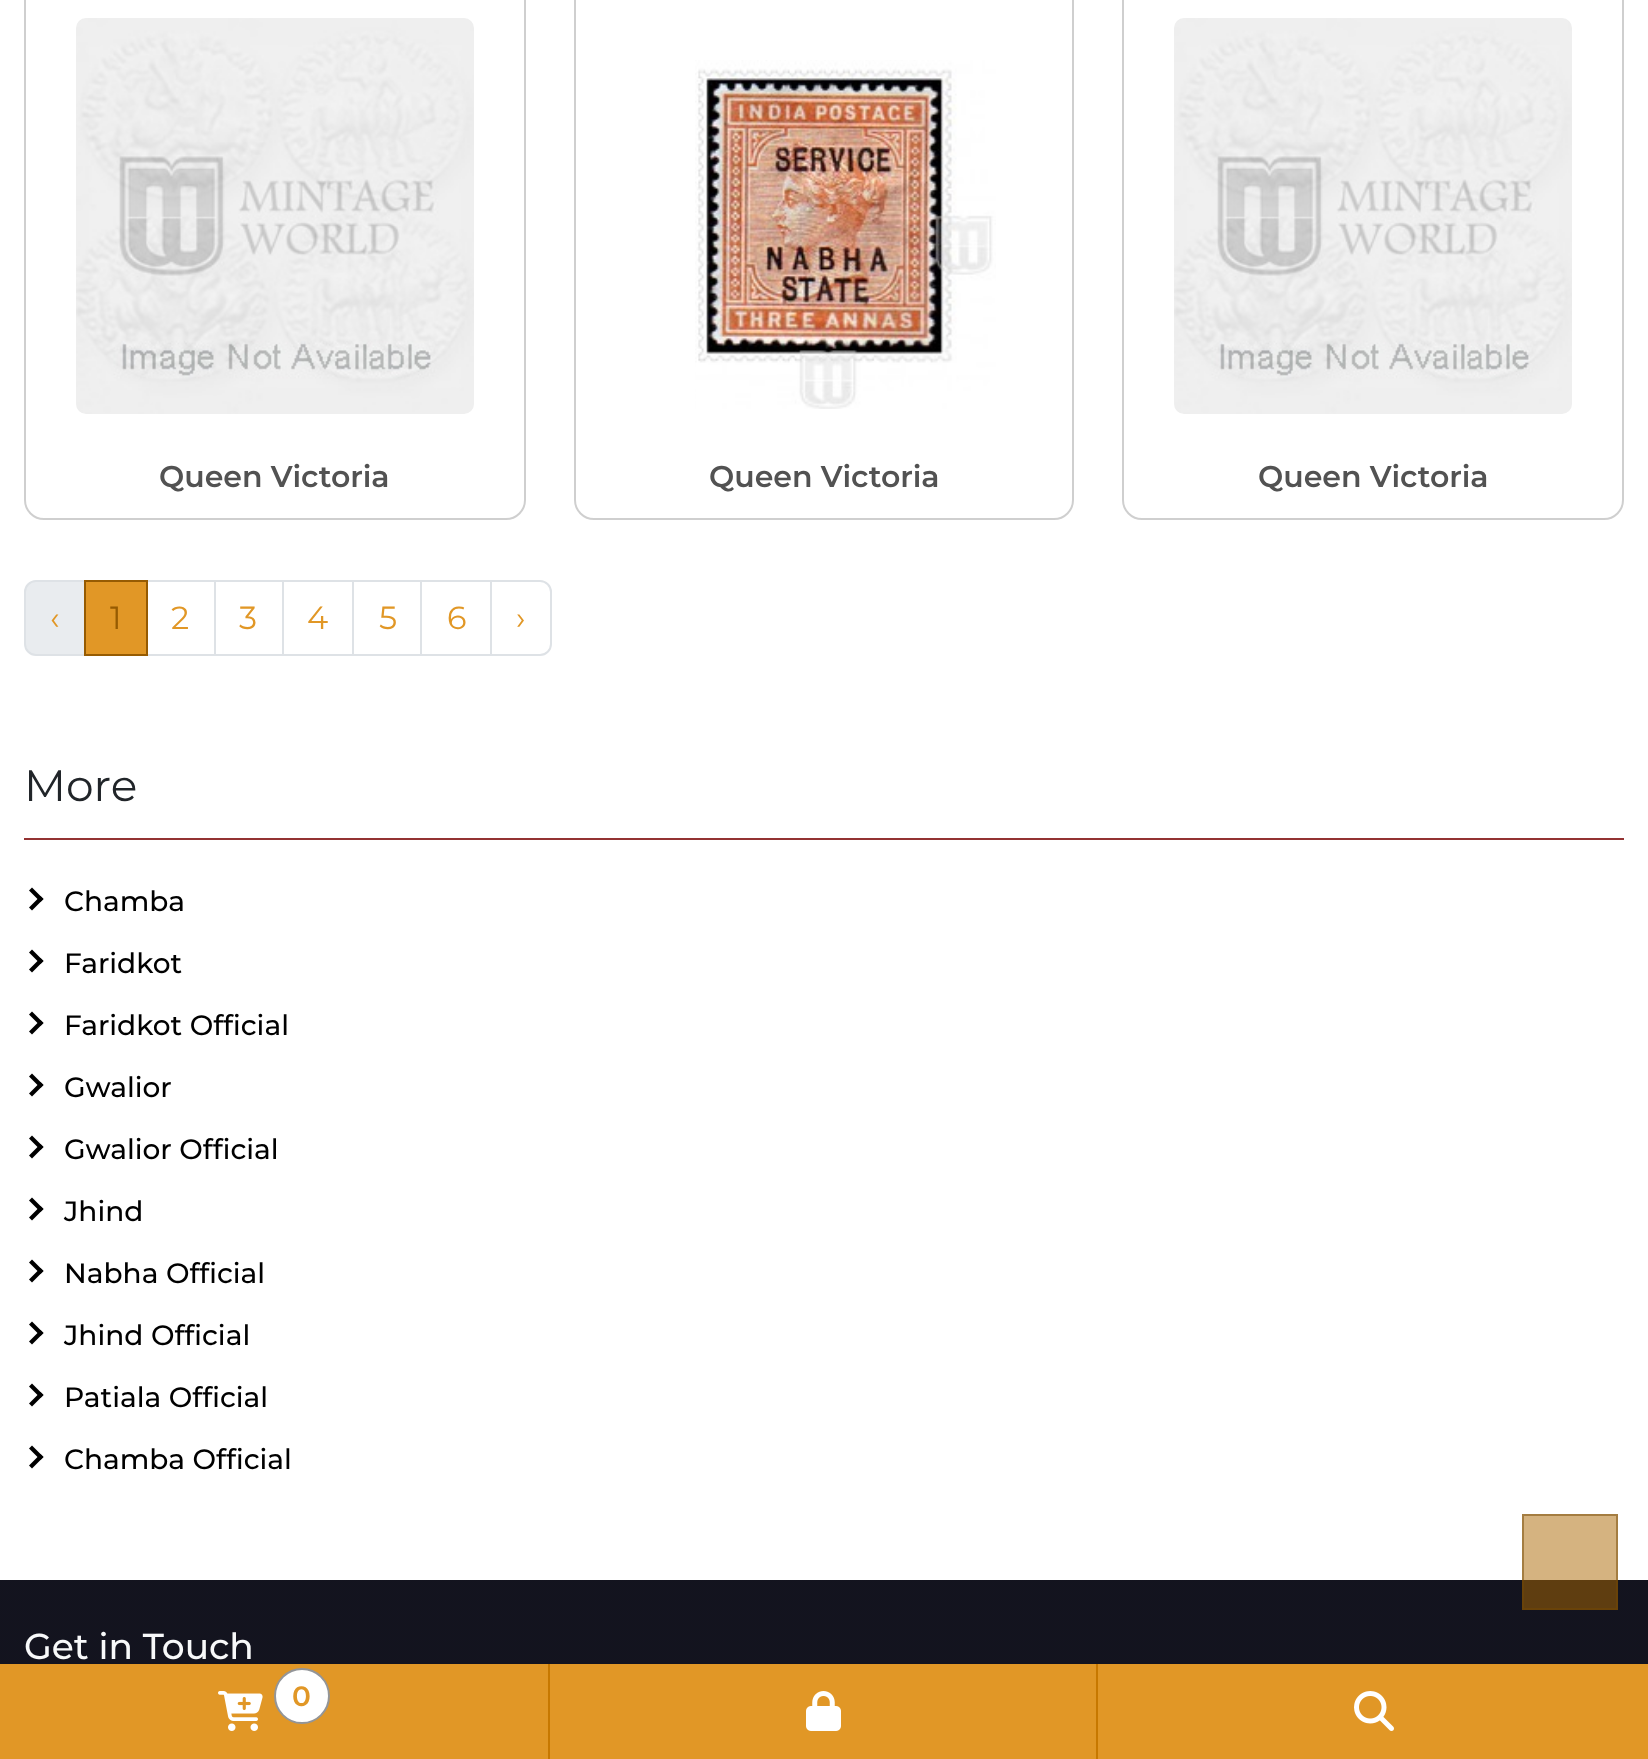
async function draw(canvas) {
	canvas.width = 1648;
	canvas.height = 1759;
	const c = canvas.getContext('2d');
	c.miterLimit = 4;
	c.fontKerning = 'normal';
	async function loadImage(src) {
		const img = new Image();
		img.src = src;
		await img.decode();
		return img;
	}

	c.fillStyle = '#fff';
	c.fillRect(0, 0, 1648, 1759);
	c.beginPath();
	c.roundRect(25, -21, 500, 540, 19);
	c.strokeStyle = '#cfcfcf';
	c.lineWidth = 2;
	c.stroke();
	c.drawImage(await loadImage('img1.png'), 76, 18, 398, 396);
	c.font = '600 30px Montserrat';
	c.fillStyle = '#525252';
	c.fillText('Queen Victoria', 159, 487);
	c.beginPath();
	c.roundRect(575, -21, 498, 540, 19);
	c.stroke();
	c.drawImage(await loadImage('img2.png'), 695, 60, 301, 349);
	c.fillText('Queen Victoria', 709, 487);
	c.beginPath();
	c.roundRect(1123, -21, 500, 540, 19);
	c.stroke();
	c.drawImage(await loadImage('img1.png'), 1174, 18, 398, 396);
	c.fillText('Queen Victoria', 1258, 487);
	c.fillStyle = '#e9ecef';
	c.beginPath();
	c.roundRect(25, 581, 60, 74, [11, 0, 0, 11]);
	c.fill();
	c.strokeStyle = '#dee2e6';
	c.stroke();
	c.font = '32px Montserrat';
	c.fillStyle = '#e19726';
	c.fillText('‹', 50, 629);
	c.strokeRect(147, 581, 68, 74);
	c.beginPath();
	c.rect(85, 581, 62, 74);
	c.fill();
	c.strokeStyle = '#965b02';
	c.stroke();
	c.fillStyle = '#965b02';
	c.fillText('1', 110, 629);
	c.fillStyle = '#e19726';
	c.fillText('2', 171, 629);
	c.strokeStyle = '#dee2e6';
	c.strokeRect(215, 581, 68, 74);
	c.fillText('3', 239, 629);
	c.strokeRect(283, 581, 70, 74);
	c.fillText('4', 307, 629);
	c.strokeRect(353, 581, 68, 74);
	c.fillText('5', 379, 629);
	c.strokeRect(421, 581, 70, 74);
	c.fillText('6', 447, 629);
	c.fillStyle = '#fff';
	c.beginPath();
	c.roundRect(491, 581, 60, 74, [0, 11, 11, 0]);
	c.fill();
	c.stroke();
	c.fillStyle = '#e19726';
	c.fillText('›', 516, 629);
	c.fillStyle = '#933232';
	c.fillRect(24, 838, 1600, 2);
	c.font = '44px Montserrat';
	c.fillStyle = '#212529';
	c.fillText('More', 24, 801);
	c.fillStyle = '#000';
	c.beginPath();
	c.moveTo(29, 890.5);
	c.lineTo(32, 887.5);
	c.lineTo(43.5, 899);
	c.lineTo(40.5, 902);
	c.closePath();
	c.fill();
	c.beginPath();
	c.moveTo(29, 907.5);
	c.lineTo(40.5, 896);
	c.lineTo(43.5, 899);
	c.lineTo(32, 910.5);
	c.closePath();
	c.fill();
	c.font = '500 28px Montserrat';
	c.fillText('Chamba', 64, 911);
	c.beginPath();
	c.moveTo(29, 952.5);
	c.lineTo(32, 949.5);
	c.lineTo(43.5, 961);
	c.lineTo(40.5, 964);
	c.closePath();
	c.fill();
	c.beginPath();
	c.moveTo(29, 969.5);
	c.lineTo(40.5, 958);
	c.lineTo(43.5, 961);
	c.lineTo(32, 972.5);
	c.closePath();
	c.fill();
	c.fillText('Faridkot', 64, 973);
	c.beginPath();
	c.moveTo(29, 1014.5);
	c.lineTo(32, 1011.5);
	c.lineTo(43.5, 1023);
	c.lineTo(40.5, 1026);
	c.closePath();
	c.fill();
	c.beginPath();
	c.moveTo(29, 1031.5);
	c.lineTo(40.5, 1020);
	c.lineTo(43.5, 1023);
	c.lineTo(32, 1034.5);
	c.closePath();
	c.fill();
	c.fillText('Faridkot Official', 64, 1035);
	c.beginPath();
	c.moveTo(29, 1076.5);
	c.lineTo(32, 1073.5);
	c.lineTo(43.5, 1085);
	c.lineTo(40.5, 1088);
	c.closePath();
	c.fill();
	c.beginPath();
	c.moveTo(29, 1093.5);
	c.lineTo(40.5, 1082);
	c.lineTo(43.5, 1085);
	c.lineTo(32, 1096.5);
	c.closePath();
	c.fill();
	c.fillText('Gwalior', 64, 1097);
	c.beginPath();
	c.moveTo(29, 1138.5);
	c.lineTo(32, 1135.5);
	c.lineTo(43.5, 1147);
	c.lineTo(40.5, 1150);
	c.closePath();
	c.fill();
	c.beginPath();
	c.moveTo(29, 1155.5);
	c.lineTo(40.5, 1144);
	c.lineTo(43.5, 1147);
	c.lineTo(32, 1158.5);
	c.closePath();
	c.fill();
	c.fillText('Gwalior Official', 64, 1159);
	c.beginPath();
	c.moveTo(29, 1200.5);
	c.lineTo(32, 1197.5);
	c.lineTo(43.5, 1209);
	c.lineTo(40.5, 1212);
	c.closePath();
	c.fill();
	c.beginPath();
	c.moveTo(29, 1217.5);
	c.lineTo(40.5, 1206);
	c.lineTo(43.5, 1209);
	c.lineTo(32, 1220.5);
	c.closePath();
	c.fill();
	c.fillText('Jhind', 64, 1221);
	c.beginPath();
	c.moveTo(29, 1262.5);
	c.lineTo(32, 1259.5);
	c.lineTo(43.5, 1271);
	c.lineTo(40.5, 1274);
	c.closePath();
	c.fill();
	c.beginPath();
	c.moveTo(29, 1279.5);
	c.lineTo(40.5, 1268);
	c.lineTo(43.5, 1271);
	c.lineTo(32, 1282.5);
	c.closePath();
	c.fill();
	c.fillText('Nabha Official', 64, 1283);
	c.beginPath();
	c.moveTo(29, 1324.5);
	c.lineTo(32, 1321.5);
	c.lineTo(43.5, 1333);
	c.lineTo(40.5, 1336);
	c.closePath();
	c.fill();
	c.beginPath();
	c.moveTo(29, 1341.5);
	c.lineTo(40.5, 1330);
	c.lineTo(43.5, 1333);
	c.lineTo(32, 1344.5);
	c.closePath();
	c.fill();
	c.fillText('Jhind Official', 64, 1345);
	c.beginPath();
	c.moveTo(29, 1386.5);
	c.lineTo(32, 1383.5);
	c.lineTo(43.5, 1395);
	c.lineTo(40.5, 1398);
	c.closePath();
	c.fill();
	c.beginPath();
	c.moveTo(29, 1403.5);
	c.lineTo(40.5, 1392);
	c.lineTo(43.5, 1395);
	c.lineTo(32, 1406.5);
	c.closePath();
	c.fill();
	c.fillText('Patiala Official', 64, 1407);
	c.beginPath();
	c.moveTo(29, 1448.5);
	c.lineTo(32, 1445.5);
	c.lineTo(43.5, 1457);
	c.lineTo(40.5, 1460);
	c.closePath();
	c.fill();
	c.beginPath();
	c.moveTo(29, 1465.5);
	c.lineTo(40.5, 1454);
	c.lineTo(43.5, 1457);
	c.lineTo(32, 1468.5);
	c.closePath();
	c.fill();
	c.fillText('Chamba Official', 64, 1469);
	c.fillStyle = '#212529';
	c.fillRect(0, 1580, 1648, 84);
	c.drawImage(await loadImage('img3.png'), 0, 1580, 1648, 84);
	c.fillStyle = '#ab680280';
	c.fillRect(1522, 1514, 96, 96);
	c.strokeStyle = '#74470180';
	c.strokeRect(1523, 1515, 94, 94);
	c.font = '500 36px Montserrat';
	c.fillStyle = '#f8f9fa';
	c.fillText('Get in Touch', 24, 1659);
	c.fillStyle = '#e19726';
	c.fillRect(0, 1664, 548, 95);
	c.fillStyle = '#c77800';
	c.fillRect(548, 1664, 2, 95);
	c.drawImage(await loadImage('img4.png'), 218, 1691, 45, 40);
	c.fillStyle = '#fff';
	c.beginPath();
	c.arc(302, 1696, 27, 0, 2 * Math.PI);
	c.fill();
	c.strokeStyle = '#939598';
	c.stroke();
	c.font = '600 28px Montserrat';
	c.fillStyle = '#e19726';
	c.fillText('0', 292, 1706);
	c.fillRect(550, 1664, 546, 95);
	c.fillStyle = '#c77800';
	c.fillRect(1096, 1664, 2, 95);
	c.drawImage(await loadImage('img5.png'), 806, 1691, 35, 40);
	c.fillStyle = '#e19726';
	c.fillRect(1098, 1664, 550, 95);
	c.drawImage(await loadImage('img6.png'), 1354, 1691, 40, 40);
}

draw(document.querySelector('canvas'));
